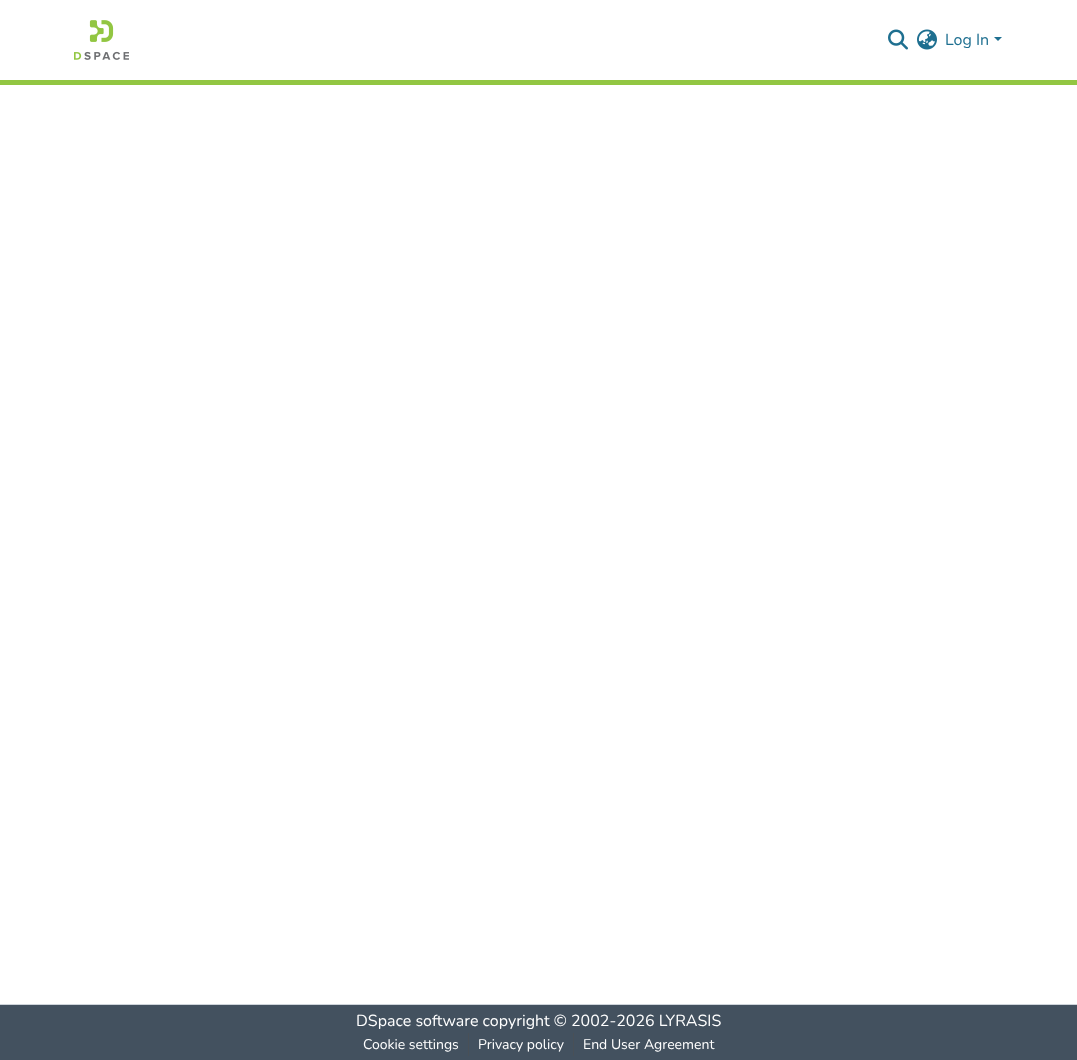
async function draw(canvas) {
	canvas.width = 1077;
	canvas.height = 1060;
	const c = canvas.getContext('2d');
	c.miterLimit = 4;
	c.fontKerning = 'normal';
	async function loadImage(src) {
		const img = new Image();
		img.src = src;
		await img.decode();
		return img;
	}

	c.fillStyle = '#fff';
	c.fillRect(0, 0, 1077, 1060);
	c.fillStyle = '#92c642';
	c.fillRect(0, 80, 1077, 5);
	c.drawImage(await loadImage('img1.png'), 74, 20, 55, 40);
	c.drawImage(await loadImage('img2.png'), 888, 29, 20, 21);
	c.drawImage(await loadImage('img3.png'), 917, 29, 20, 21);
	c.font = '16px Nunito';
	c.fillStyle = '#1e6f90';
	c.fillText('Log In', 945, 45);
	c.beginPath();
	c.moveTo(994, 37);
	c.lineTo(1002, 37);
	c.lineTo(998, 41);
	c.closePath();
	c.fill();
	c.fillStyle = '#43515f';
	c.fillRect(0, 1005, 1077, 55);
	c.fillStyle = '#ced4da';
	c.fillRect(0, 1004, 1077, 1);
	c.fillStyle = '#fff';
	c.fillText('DSpace software copyright © 2002-2026 LYRASIS', 356, 1026);
	c.font = '14px Nunito';
	c.fillText('Cookie settings', 363, 1049);
	c.fillStyle = '#495057';
	c.fillRect(468, 1033, 1, 23);
	c.fillStyle = '#fff';
	c.fillText('Privacy policy', 478, 1049);
	c.fillStyle = '#495057';
	c.fillRect(573, 1033, 1, 23);
	c.fillStyle = '#fff';
	c.fillText('End User Agreement', 583, 1049);
}

draw(document.querySelector('canvas'));
